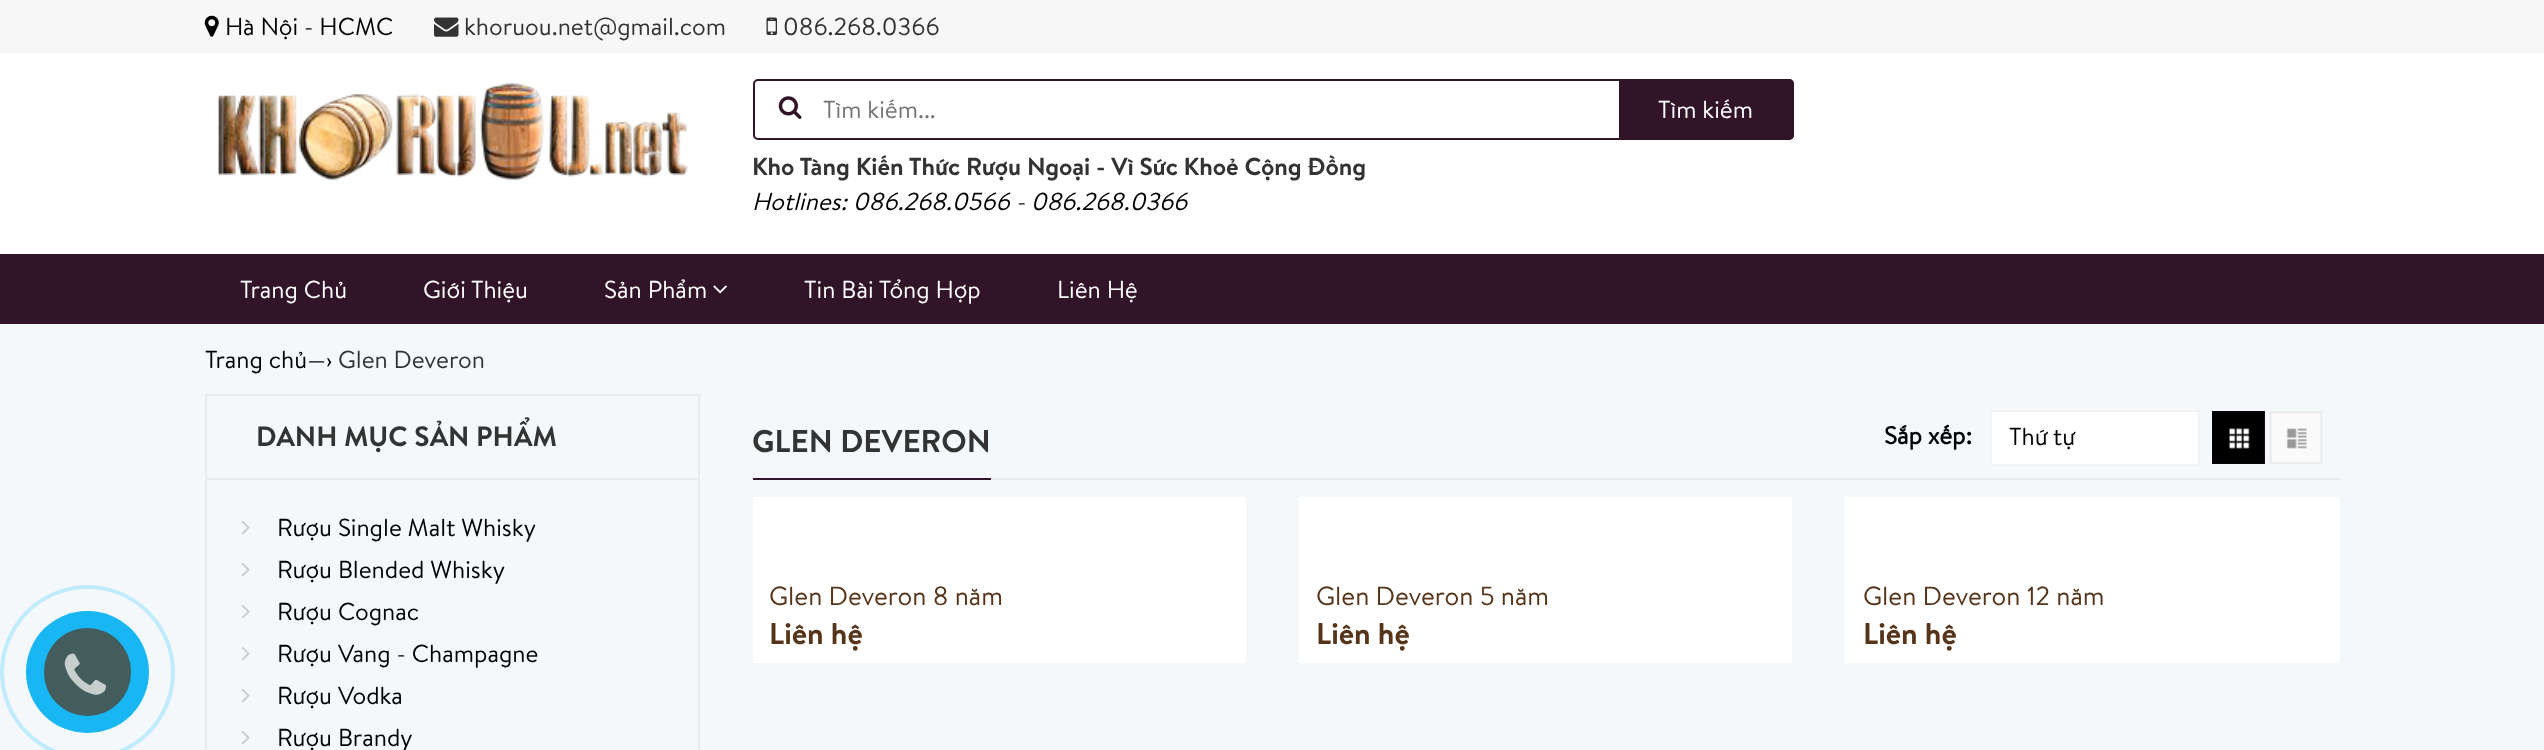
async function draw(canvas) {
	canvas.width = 2544;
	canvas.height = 750;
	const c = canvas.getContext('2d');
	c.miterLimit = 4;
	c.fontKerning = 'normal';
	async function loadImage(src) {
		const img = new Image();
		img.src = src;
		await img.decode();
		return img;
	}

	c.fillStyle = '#f4f8fa';
	c.fillRect(0, 0, 2544, 750);
	c.beginPath();
	c.arc(87.5, 672.5, 85.5, 0, 2 * Math.PI);
	c.strokeStyle = '#bfebfc';
	c.lineWidth = 4;
	c.stroke();
	c.fillStyle = '#18b6f3';
	c.beginPath();
	c.roundRect(26, 611, 123, 122, 61);
	c.fill();
	c.fillStyle = '#435c5c';
	c.beginPath();
	c.roundRect(44, 628, 87, 88, 43.5);
	c.fill();
	c.drawImage(await loadImage('img1.png'), 64, 653, 42, 42);
	c.fillStyle = '#fff';
	c.fillRect(0, 53, 2544, 201);
	c.fillStyle = '#f7f7f7';
	c.fillRect(0, 0, 2544, 53);
	c.drawImage(await loadImage('img2.png'), 204, 15, 15, 22);
	c.font = '24.5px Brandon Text';
	c.fillStyle = '#000';
	c.fillText('Hà Nội - HCMC', 225, 35);
	c.drawImage(await loadImage('img3.png'), 434, 17, 25, 20);
	c.fillStyle = '#333';
	c.fillText('khoruou.net@gmail.com', 464, 35);
	c.drawImage(await loadImage('img4.png'), 766, 17, 11, 18);
	c.fillText('086.268.0366', 783, 35);
	c.drawImage(await loadImage('img5.png'), 218, 83, 470, 97);
	c.beginPath();
	c.roundRect(754, 80, 1039, 59, 4);
	c.strokeStyle = '#321428';
	c.lineWidth = 2;
	c.stroke();
	c.drawImage(await loadImage('img6.png'), 778, 96, 24, 23);
	c.fillStyle = '#757575';
	c.fillText('Tìm kiếm...', 823, 118);
	c.fillStyle = '#321428';
	c.beginPath();
	c.roundRect(1619, 79, 175, 61, [0, 5, 5, 0]);
	c.fill();
	c.fillStyle = '#fff';
	c.fillText('Tìm kiếm', 1658, 118);
	c.font = 'bold 24.5px Brandon Text';
	c.fillStyle = '#333';
	c.fillText('Kho Tàng Kiến Thức Rượu Ngoại - Vì Sức Khoẻ Cộng Đồng', 752, 175);
	c.font = 'italic 24.5px Brandon Text';
	c.fillStyle = '#000';
	c.fillText('Hotlines: 086.268.0566 - 086.268.0366', 752, 210);
	c.fillStyle = '#321428';
	c.fillRect(0, 254, 2544, 70);
	c.font = '24.5px Brandon Text';
	c.fillStyle = '#fff';
	for (const [text, x, y] of [
		['Trang Chủ', 240, 298],
		['Giới Thiệu', 423, 298],
		['Sản Phẩm', 604, 298],
	]) {
		c.fillText(text, x, y);
	}
	c.drawImage(await loadImage('img7.png'), 713, 285, 14, 9);
	c.fillText('Tin Bài Tổng Hợp', 804, 298);
	c.fillText('Liên Hệ', 1057, 298);
	c.fillStyle = '#000';
	c.fillText('Trang chủ—›', 205, 368);
	c.fillStyle = '#333';
	c.fillText('Glen Deveron', 338, 368);
	for (const [x, y, w, h, color] of [
		[698, 394, 2, 356, '#eaeaea'],
		[205, 394, 2, 356, '#eaeaea'],
		[207, 394, 491, 2, '#eaeaea'],
		[207, 478, 491, 2, '#eaeaea'],
	]) {
		c.fillStyle = color;
		c.fillRect(x, y, w, h);
	}
	c.font = 'bold 28px Brandon Text';
	c.fillStyle = '#333';
	c.fillText('DANH MỤC SẢN PHẨM', 256, 446);
	c.drawImage(await loadImage('img8.png'), 241, 521, 9, 14);
	c.font = '24.5px Brandon Text';
	c.fillStyle = '#000';
	c.fillText('Rượu Single Malt Whisky', 277, 536);
	c.drawImage(await loadImage('img8.png'), 241, 563, 9, 14);
	c.fillText('Rượu Blended Whisky', 277, 578);
	c.drawImage(await loadImage('img8.png'), 241, 605, 9, 14);
	c.fillText('Rượu Cognac', 277, 620);
	c.drawImage(await loadImage('img8.png'), 241, 647, 9, 14);
	c.fillText('Rượu Vang - Champagne', 277, 662);
	c.drawImage(await loadImage('img8.png'), 241, 689, 9, 14);
	c.fillText('Rượu Vodka', 277, 704);
	c.drawImage(await loadImage('img8.png'), 241, 731, 9, 14);
	c.fillText('Rượu Brandy', 277, 746);
	c.fillStyle = '#eaeaea';
	c.fillRect(991, 478, 1349, 2);
	c.font = 'bold 31.5px Brandon Text';
	c.fillStyle = '#333';
	c.fillText('GLEN DEVERON', 752, 452);
	c.fillStyle = '#321428';
	c.fillRect(753, 478, 238, 2);
	c.font = 'bold 24.5px "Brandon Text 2"';
	c.fillStyle = '#000';
	c.fillText('Sắp xếp:', 1884, 444);
	c.fillStyle = '#fff';
	c.beginPath();
	c.rect(1991, 411, 208, 54);
	c.fill();
	c.strokeStyle = '#f3f3f3';
	c.stroke();
	c.font = '24.5px Brandon Text';
	c.fillStyle = '#000';
	c.fillText('Thứ tự', 2009, 445);
	c.fillStyle = '#321428';
	c.fillRect(2212, 411, 53, 53);
	c.drawImage(await loadImage('img9.png'), 2212, 411, 53, 53);
	c.drawImage(await loadImage('img10.png'), 2269, 411, 54, 53);
	c.fillStyle = '#fff';
	c.fillRect(753, 497, 493, 166);
	c.font = '26.25px Brandon Text';
	c.fillStyle = '#56351b';
	c.fillText('Glen Deveron 8 năm', 769, 605);
	c.font = 'bold 30px Brandon Text';
	c.fillText('Liên hệ', 769, 644);
	c.fillStyle = '#fff';
	c.fillRect(1299, 497, 493, 166);
	c.font = '26.25px Brandon Text';
	c.fillStyle = '#56351b';
	c.fillText('Glen Deveron 5 năm', 1316, 605);
	c.font = 'bold 30px Brandon Text';
	c.fillText('Liên hệ', 1316, 644);
	c.fillStyle = '#fff';
	c.fillRect(1845, 497, 495, 166);
	c.font = '26.25px Brandon Text';
	c.fillStyle = '#56351b';
	c.fillText('Glen Deveron 12 năm', 1863, 605);
	c.font = 'bold 30px Brandon Text';
	c.fillText('Liên hệ', 1863, 644);
}

draw(document.querySelector('canvas'));
